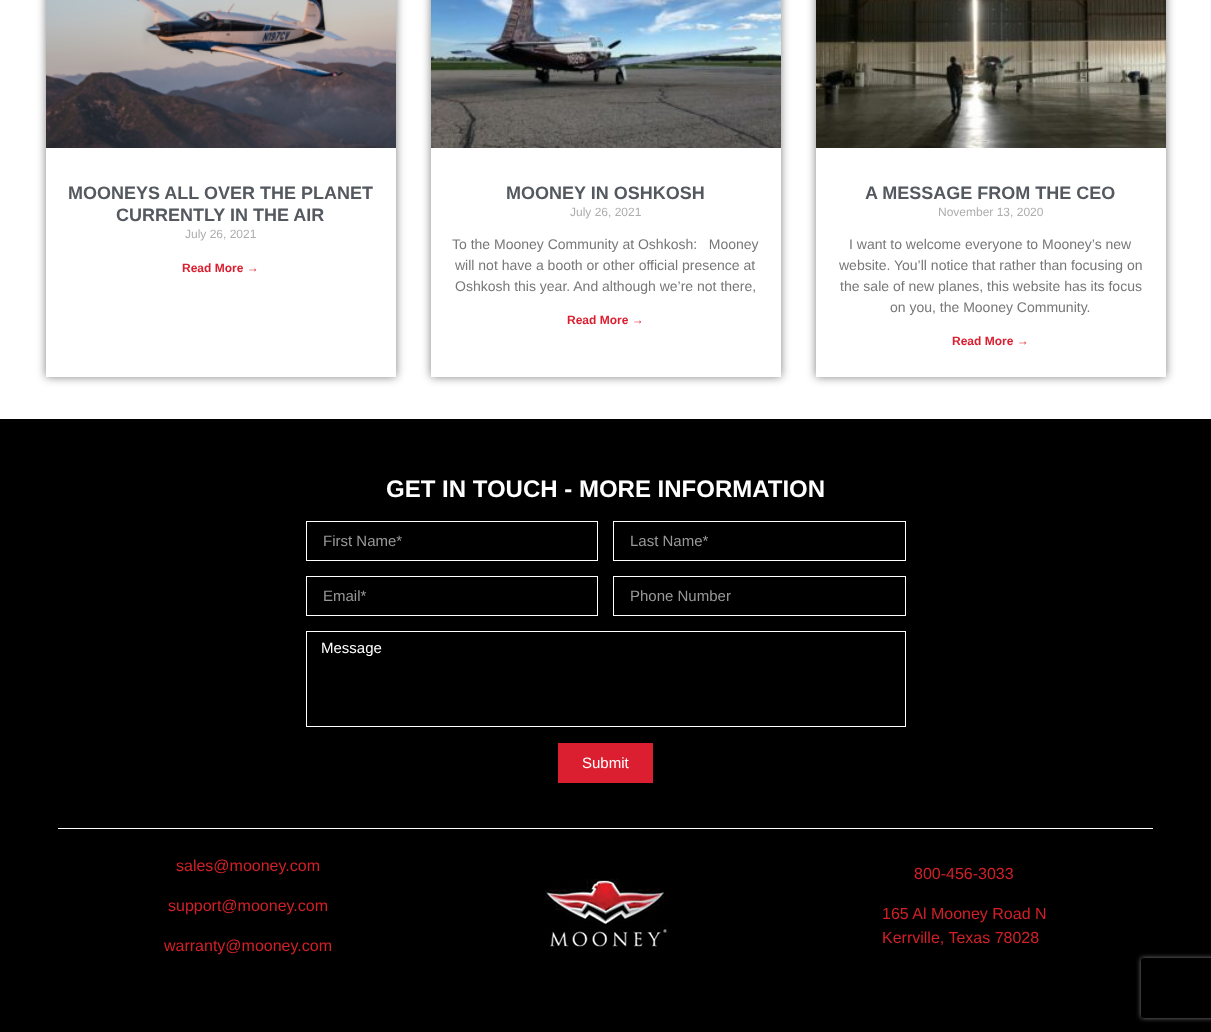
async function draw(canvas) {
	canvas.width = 1211;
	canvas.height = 1032;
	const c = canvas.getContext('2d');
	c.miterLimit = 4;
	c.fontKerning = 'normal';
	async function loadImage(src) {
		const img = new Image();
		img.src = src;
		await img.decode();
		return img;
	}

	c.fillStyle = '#fff';
	c.fillRect(0, 0, 1211, 1032);
	c.save();
	c.beginPath();
	c.moveTo(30, 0);
	c.lineTo(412, 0);
	c.lineTo(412, 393);
	c.lineTo(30, 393);
	c.closePath();
	c.moveTo(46, -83);
	c.lineTo(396, -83);
	c.lineTo(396, 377);
	c.lineTo(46, 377);
	c.closePath();
	c.clip('evenodd');
	c.fillStyle = '#00000080';
	c.filter = 'blur(5px)';
	c.beginPath();
	c.rect(46, -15, 350, 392);
	c.fill();
	c.filter = 'none';
	c.restore();
	c.drawImage(await loadImage('img1.png'), 46, 0, 350, 148);
	c.font = 'bold 18px Liberation Sans';
	c.fillStyle = '#54595f';
	c.fillText('MOONEYS ALL OVER THE PLANET', 68, 199);
	c.fillText('CURRENTLY IN THE AIR', 116, 221);
	c.font = '12px Liberation Sans';
	c.fillStyle = '#adadad';
	c.fillText('July 26, 2021', 185, 238);
	c.font = 'bold 12px Liberation Sans';
	c.fillStyle = '#db1f30';
	c.fillText('Read More →', 182, 272);
	c.save();
	c.beginPath();
	c.moveTo(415, 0);
	c.lineTo(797, 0);
	c.lineTo(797, 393);
	c.lineTo(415, 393);
	c.closePath();
	c.moveTo(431, -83);
	c.lineTo(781, -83);
	c.lineTo(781, 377);
	c.lineTo(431, 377);
	c.closePath();
	c.clip('evenodd');
	c.fillStyle = '#00000080';
	c.filter = 'blur(5px)';
	c.beginPath();
	c.rect(431, -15, 350, 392);
	c.fill();
	c.filter = 'none';
	c.restore();
	c.drawImage(await loadImage('img2.png'), 431, 0, 350, 148);
	c.font = 'bold 18px Liberation Sans';
	c.fillStyle = '#54595f';
	c.fillText('MOONEY IN OSHKOSH', 506, 199);
	c.font = '12px Liberation Sans';
	c.fillStyle = '#adadad';
	c.fillText('July 26, 2021', 570, 216);
	c.font = '14px Liberation Sans';
	c.fillStyle = '#777';
	for (const [text, x, y] of [
		['To the Mooney Community at Oshkosh:   Mooney', 452, 249],
		['will not have a booth or other official presence at', 455, 270],
		['Oshkosh this year. And although we’re not there,', 455, 291],
	]) {
		c.fillText(text, x, y);
	}
	c.font = 'bold 12px Liberation Sans';
	c.fillStyle = '#db1f30';
	c.fillText('Read More →', 567, 324);
	c.save();
	c.beginPath();
	c.moveTo(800, 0);
	c.lineTo(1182, 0);
	c.lineTo(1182, 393);
	c.lineTo(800, 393);
	c.closePath();
	c.moveTo(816, -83);
	c.lineTo(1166, -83);
	c.lineTo(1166, 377);
	c.lineTo(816, 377);
	c.closePath();
	c.clip('evenodd');
	c.fillStyle = '#00000080';
	c.filter = 'blur(5px)';
	c.beginPath();
	c.rect(816, -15, 350, 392);
	c.fill();
	c.filter = 'none';
	c.restore();
	c.drawImage(await loadImage('img3.png'), 816, 0, 350, 148);
	c.font = 'bold 18px Liberation Sans';
	c.fillStyle = '#54595f';
	c.fillText('A MESSAGE FROM THE CEO', 865, 199);
	c.font = '12px Liberation Sans';
	c.fillStyle = '#adadad';
	c.fillText('November 13, 2020', 938, 216);
	c.font = '14px Liberation Sans';
	c.fillStyle = '#777';
	for (const [text, x, y] of [
		['I want to welcome everyone to Mooney’s new', 849, 249],
		['website. You’ll notice that rather than focusing on', 839, 270],
		['the sale of new planes, this website has its focus', 840, 291],
		['on you, the Mooney Community.', 890, 312],
	]) {
		c.fillText(text, x, y);
	}
	c.font = 'bold 12px Liberation Sans';
	c.fillStyle = '#db1f30';
	c.fillText('Read More →', 952, 345);
	c.fillStyle = '#000';
	c.fillRect(0, 419, 1211, 613);
	c.font = 'bold 24px Liberation Sans';
	c.fillStyle = '#fff';
	c.fillText('GET IN TOUCH - MORE INFORMATION', 386, 497);
	c.strokeStyle = '#fff';
	c.strokeRect(306.5, 521.5, 291, 39);
	c.font = '15px Liberation Sans';
	c.fillStyle = '#999';
	c.fillText('First Name*', 323, 546);
	c.strokeRect(613.5, 521.5, 292, 39);
	c.fillText('Last Name*', 630, 546);
	c.strokeRect(306.5, 576.5, 291, 39);
	c.fillText('Email*', 323, 601);
	c.strokeRect(613.5, 576.5, 292, 39);
	c.fillText('Phone Number', 630, 601);
	c.strokeRect(306.5, 631.5, 599, 95);
	c.fillStyle = '#fff';
	c.fillText('Message', 321, 653);
	c.fillStyle = '#db1f30';
	c.fillRect(558, 743, 95, 40);
	c.fillStyle = '#fff';
	c.fillText('Submit', 582, 768);
	c.save();
	c.beginPath();
	c.moveTo(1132, 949);
	c.lineTo(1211, 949);
	c.lineTo(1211, 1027);
	c.lineTo(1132, 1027);
	c.closePath();
	c.moveTo(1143, 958);
	c.lineTo(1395, 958);
	c.bezierCurveTo(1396, 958, 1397, 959, 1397, 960);
	c.lineTo(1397, 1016);
	c.bezierCurveTo(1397, 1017, 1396, 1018, 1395, 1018);
	c.lineTo(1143, 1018);
	c.bezierCurveTo(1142, 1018, 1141, 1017, 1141, 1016);
	c.lineTo(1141, 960);
	c.bezierCurveTo(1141, 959, 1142, 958, 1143, 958);
	c.closePath();
	c.clip('evenodd');
	c.fillStyle = '#808080';
	c.filter = 'blur(2.5px)';
	c.beginPath();
	c.roundRect(1141, 958, 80, 60, 2);
	c.fill();
	c.filter = 'none';
	c.restore();
	c.fillRect(58, 828, 1095, 1);
	c.font = '16px Liberation Sans';
	c.fillStyle = '#d12027';
	for (const [text, x, y] of [
		['sales@mooney.com', 176, 871],
		['support@mooney.com', 168, 911],
		['warranty@mooney.com', 164, 951],
	]) {
		c.fillText(text, x, y);
	}
	c.drawImage(await loadImage('img4.png'), 545, 879, 124, 68);
	for (const [text, x, y] of [
		['800-456-3033', 914, 879],
		['165 Al Mooney Road N', 882, 919],
		['Kerrville, Texas 78028', 882, 943],
	]) {
		c.fillText(text, x, y);
	}
}

draw(document.querySelector('canvas'));
